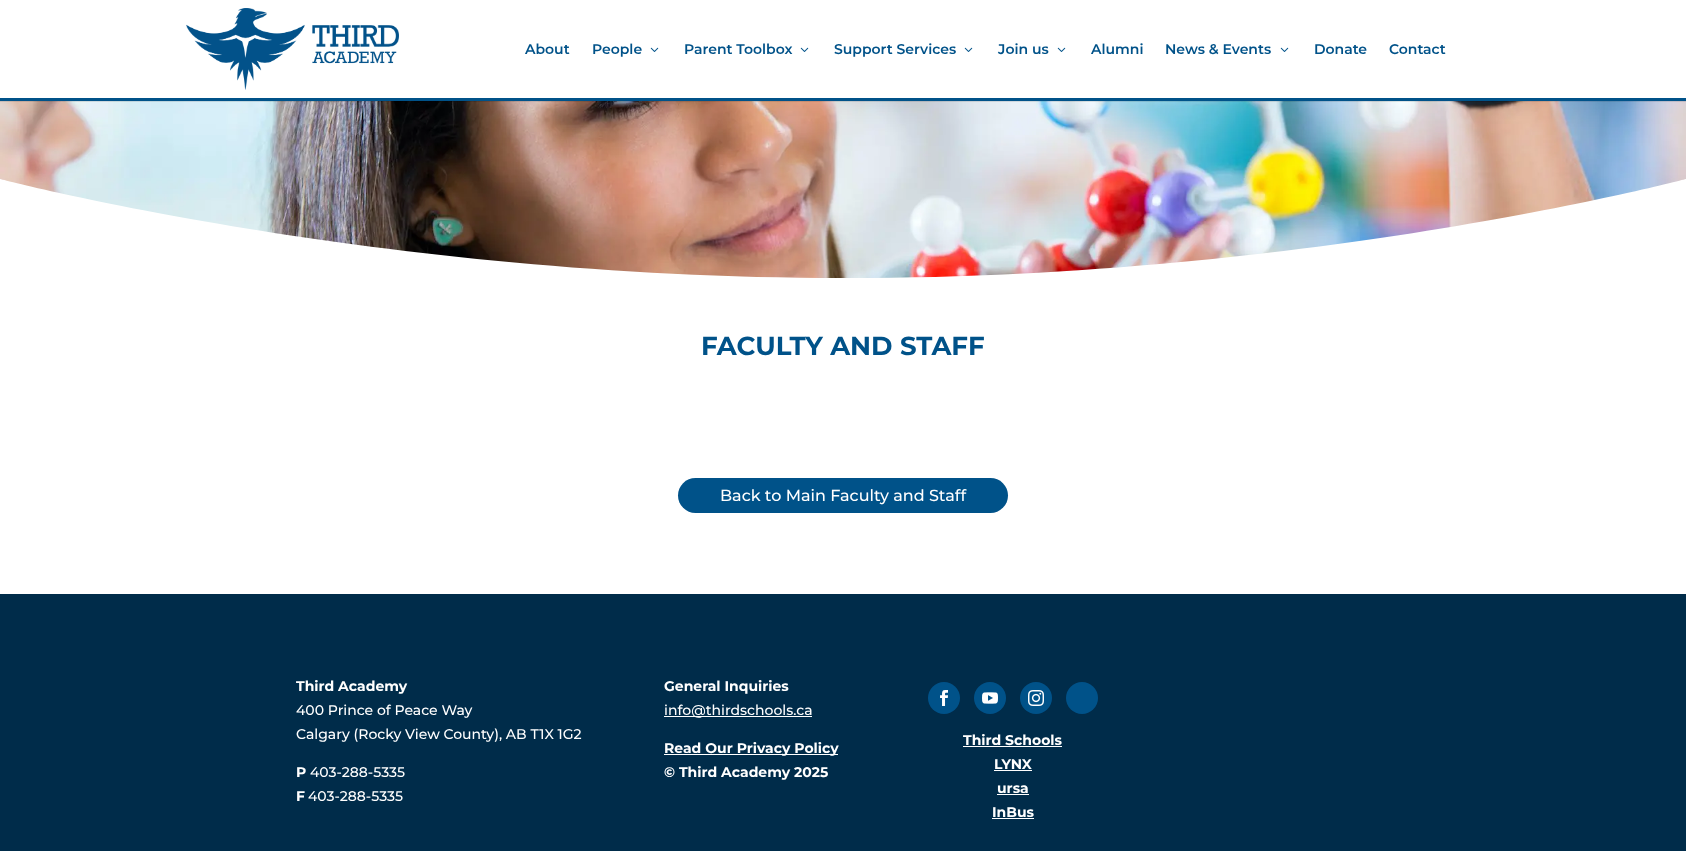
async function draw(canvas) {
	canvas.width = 1686;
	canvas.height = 851;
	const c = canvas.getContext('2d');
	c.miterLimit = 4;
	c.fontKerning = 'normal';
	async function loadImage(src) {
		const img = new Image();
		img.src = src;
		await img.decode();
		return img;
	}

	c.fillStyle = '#fff';
	c.fillRect(0, 0, 1686, 851);
	c.drawImage(await loadImage('img3.png'), 0, 101, 1686, 177);
	c.fillStyle = '#0000001a';
	c.fillRect(0, 101, 1686, 1);
	c.fillStyle = '#005289';
	c.fillRect(0, 98, 1686, 3);
	c.drawImage(await loadImage('img1.png'), 186, 8, 213, 82);
	c.font = '600 14px Montserrat';
	c.fillText('About', 525, 54);
	c.fillText('People', 592, 54);
	c.drawImage(await loadImage('img2.png'), 650, 47, 9, 5);
	c.fillText('Parent Toolbox', 684, 54);
	c.drawImage(await loadImage('img2.png'), 800, 47, 9, 5);
	c.fillText('Support Services', 834, 54);
	c.drawImage(await loadImage('img2.png'), 964, 47, 9, 5);
	c.fillText('Join us', 998, 54);
	c.drawImage(await loadImage('img2.png'), 1057, 47, 9, 5);
	c.fillText('Alumni', 1091, 54);
	c.fillText('News & Events', 1165, 54);
	c.drawImage(await loadImage('img2.png'), 1280, 47, 9, 5);
	c.fillText('Donate', 1314, 54);
	c.fillText('Contact', 1389, 54);
	c.fillStyle = '#fff';
	c.beginPath();
	c.moveTo(1686, 279);
	c.lineTo(1686, 179);
	c.bezierCurveTo(1686, 179, 1309, 279, 843, 278);
	c.bezierCurveTo(377, 278, 0, 179, 0, 179);
	c.lineTo(0, 279);
	c.closePath();
	c.fill();
	c.font = 'bold 26px Montserrat';
	c.fillStyle = '#005289';
	c.fillText('FACULTY AND STAFF', 701, 355);
	c.beginPath();
	c.roundRect(678, 478, 330, 35, 17.5);
	c.fill();
	c.font = '500 16px Montserrat';
	c.fillStyle = '#fff';
	c.fillText('Back to Main Faculty and Staff', 720, 501);
	c.fillStyle = '#002c4a';
	c.fillRect(0, 594, 1686, 257);
	c.font = 'bold 14px Montserrat';
	c.fillStyle = '#fff';
	c.fillText('Third Academy', 296, 691);
	c.font = '500 14px Montserrat';
	c.fillText('400 Prince of Peace Way', 296, 715);
	c.fillText('Calgary (Rocky View County), AB T1X 1G2', 296, 739);
	c.font = 'bold 14px Montserrat';
	c.fillText('P', 296, 777);
	c.font = '500 14px Montserrat';
	c.fillText('403-288-5335', 310, 777);
	c.font = 'bold 14px Montserrat';
	c.fillText('F', 296, 801);
	c.font = '500 14px Montserrat';
	c.fillText('403-288-5335', 308, 801);
	c.font = 'bold 14px Montserrat';
	c.fillText('General Inquiries', 664, 691);
	c.fillRect(664, 716, 148, 1);
	c.font = '500 14px Montserrat';
	c.fillText('info@thirdschools.ca', 664, 715);
	c.fillRect(664, 754, 174, 1);
	c.font = 'bold 14px Montserrat';
	c.fillText('Read Our Privacy Policy', 664, 753);
	c.fillText('© Third Academy 2025', 664, 777);
	c.fillStyle = '#005289';
	c.beginPath();
	c.arc(944, 698, 16, 0, 2 * Math.PI);
	c.fill();
	c.drawImage(await loadImage('img4.png'), 940, 690, 8, 16);
	c.beginPath();
	c.arc(990, 698, 16, 0, 2 * Math.PI);
	c.fill();
	c.drawImage(await loadImage('img5.png'), 982, 692, 16, 12);
	c.beginPath();
	c.arc(1036, 698, 16, 0, 2 * Math.PI);
	c.fill();
	c.drawImage(await loadImage('img6.png'), 1028, 690, 16, 16);
	c.beginPath();
	c.arc(1082, 698, 16, 0, 2 * Math.PI);
	c.fill();
	c.fillStyle = '#fff';
	c.fillText('Third Schools', 963, 745);
	c.fillRect(963, 746, 99, 1);
	c.fillText('LYNX', 994, 769);
	c.fillRect(994, 770, 38, 1);
	c.fillText('ursa', 997, 793);
	c.fillRect(997, 794, 32, 1);
	c.fillText('InBus', 992, 817);
	c.fillRect(992, 818, 42, 1);
}

draw(document.querySelector('canvas'));
